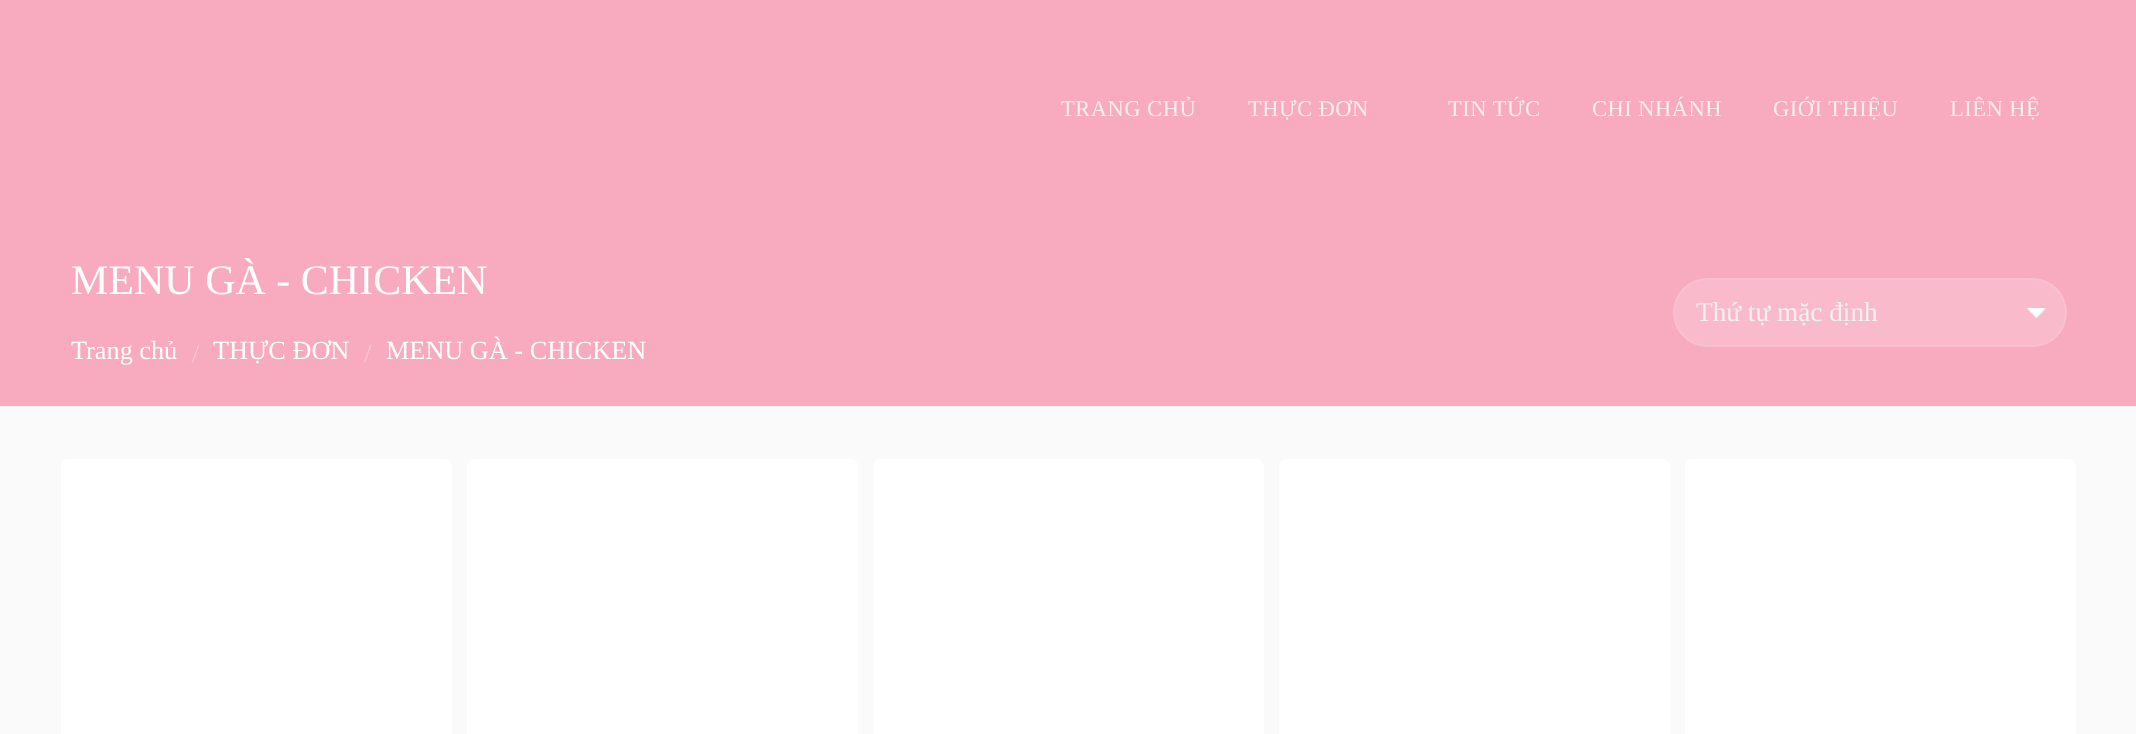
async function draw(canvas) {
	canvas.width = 2136;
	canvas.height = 734;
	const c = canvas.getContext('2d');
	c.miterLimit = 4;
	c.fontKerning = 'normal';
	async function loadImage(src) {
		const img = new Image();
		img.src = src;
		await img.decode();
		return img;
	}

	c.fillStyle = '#f8aabf';
	c.fillRect(0, 0, 2136, 734);
	c.letterSpacing = '0.5px';
	c.font = '22.5px Liberation Serif';
	c.fillStyle = '#feeef2';
	for (const [text, x, y] of [
		['TRANG CHỦ', 1061, 116],
		['THỰC ĐƠN', 1248, 116],
		['TIN TỨC', 1448, 116],
		['CHI NHÁNH', 1592, 116],
		['GIỚI THIỆU', 1773, 116],
		['LIÊN HỆ', 1950, 116],
	]) {
		c.fillText(text, x, y);
	}
	c.letterSpacing = '0px';
	c.font = '42px Liberation Serif';
	c.fillStyle = '#fff';
	c.fillText('MENU GÀ - CHICKEN', 71, 294);
	c.font = '26.25px Liberation Serif';
	c.fillText('Trang chủ', 71, 359);
	c.fillStyle = '#fac8d5';
	c.fillText('/', 192, 362);
	c.fillStyle = '#fff';
	c.fillText('THỰC ĐƠN', 213, 359);
	c.fillStyle = '#fac8d5';
	c.fillText('/', 364, 362);
	c.fillStyle = '#fff';
	c.fillText('MENU GÀ - CHICKEN', 386, 359);
	c.fillStyle = '#f9bbcc';
	c.beginPath();
	c.roundRect(1673, 278, 394, 69, 34.5);
	c.fill();
	c.drawImage(await loadImage('img1.png'), 2026, 308, 21, 11);
	c.beginPath();
	c.roundRect(1674, 279, 392, 67, 33.5);
	c.strokeStyle = '#ffffff17';
	c.lineWidth = 2;
	c.stroke();
	c.font = '27.25px Liberation Serif';
	c.fillStyle = '#f1f1f1';
	c.fillText('Thứ tự mặc định', 1696, 321);
	c.fillStyle = '#fafafa';
	c.fillRect(0, 406, 2136, 328);
	c.fillStyle = '#fff';
	c.beginPath();
	c.roundRect(61, 459, 391, 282, 7);
	c.fill();
	c.beginPath();
	c.roundRect(467, 459, 391, 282, 7);
	c.fill();
	c.beginPath();
	c.roundRect(873, 459, 391, 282, 7);
	c.fill();
	c.beginPath();
	c.roundRect(1279, 459, 391, 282, 7);
	c.fill();
	c.beginPath();
	c.roundRect(1685, 459, 391, 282, 7);
	c.fill();
}

draw(document.querySelector('canvas'));
